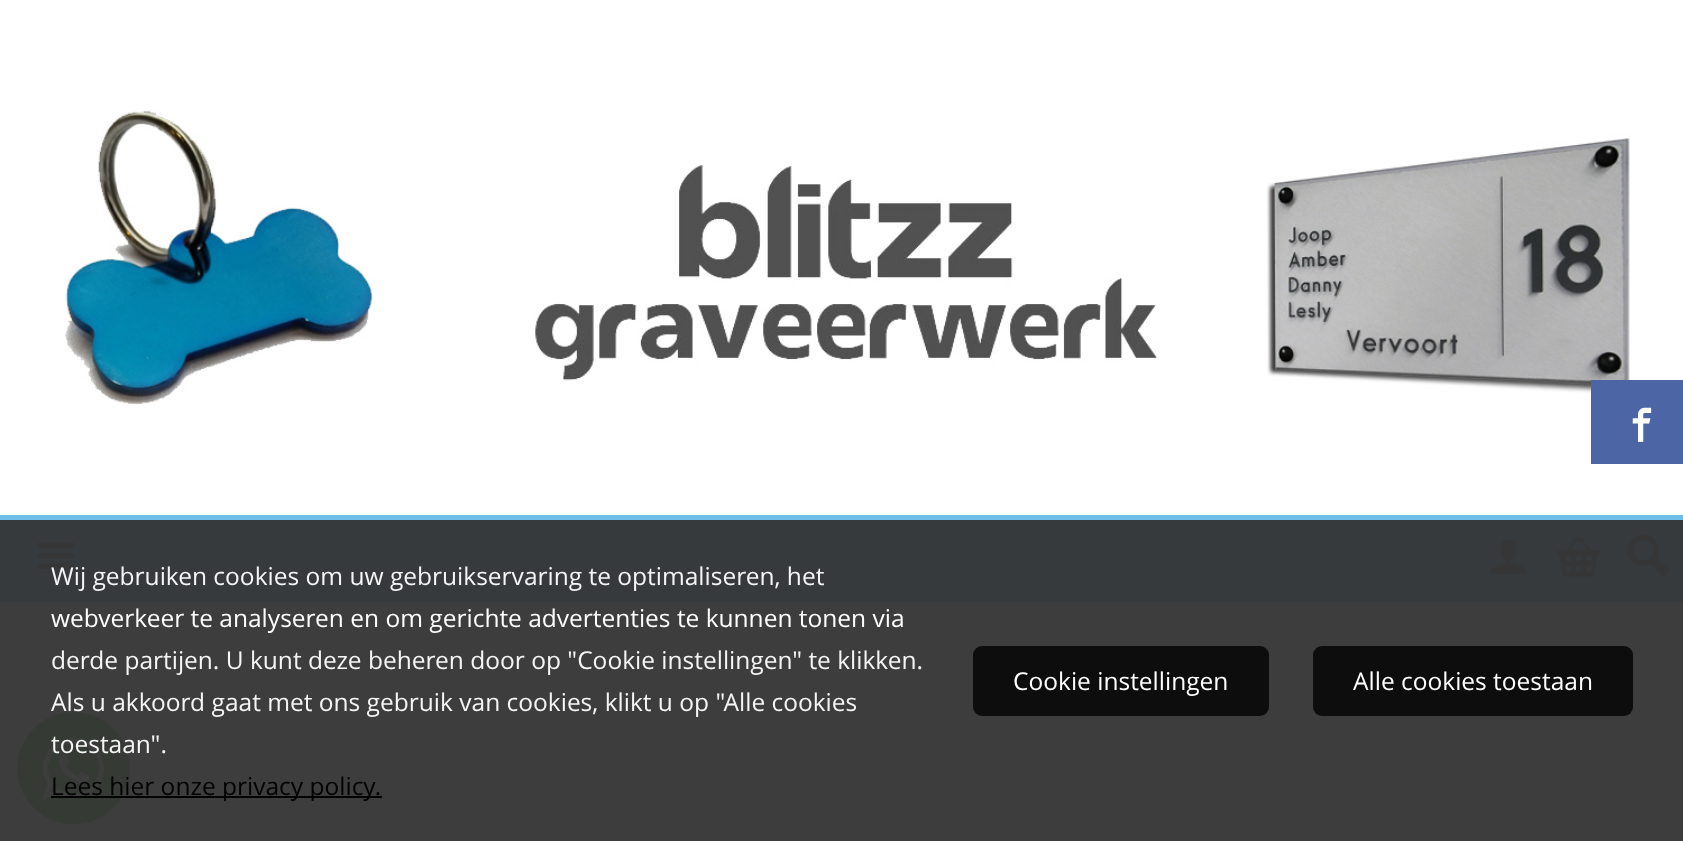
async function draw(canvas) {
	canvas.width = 1683;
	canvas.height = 841;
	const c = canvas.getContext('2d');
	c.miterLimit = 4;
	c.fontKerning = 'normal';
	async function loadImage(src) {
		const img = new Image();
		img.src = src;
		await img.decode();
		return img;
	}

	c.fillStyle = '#fff';
	c.fillRect(0, 0, 1683, 841);
	c.fillStyle = '#3d3d3d';
	c.fillRect(0, 602, 1683, 239);
	c.drawImage(await loadImage('img1.png'), 65, 110, 1565, 295);
	c.fillStyle = '#4c65a5';
	c.fillRect(1591, 380, 92, 84);
	c.drawImage(await loadImage('img2.png'), 1632, 407, 20, 35);
	c.fillStyle = '#6fbeea';
	c.fillRect(0, 515, 1683, 5);
	c.fillStyle = '#363a3c';
	c.fillRect(0, 520, 1683, 82);
	c.fillStyle = '#363636';
	c.beginPath();
	c.moveTo(37.5, 542.5);
	c.lineTo(74.5, 542.5);
	c.lineTo(74.5, 548);
	c.lineTo(37.5, 548);
	c.closePath();
	c.moveTo(37.5, 553);
	c.lineTo(74.5, 553);
	c.lineTo(74.5, 558);
	c.lineTo(37.5, 558);
	c.closePath();
	c.moveTo(37.5, 563.5);
	c.lineTo(74.5, 563.5);
	c.lineTo(74.5, 569);
	c.lineTo(37.5, 569);
	c.closePath();
	c.fill();
	c.drawImage(await loadImage('img3.png'), 1490, 539, 37, 35);
	c.drawImage(await loadImage('img4.png'), 1557, 537, 43, 40);
	c.beginPath();
	c.moveTo(1670, 570);
	c.lineTo(1657, 558);
	c.bezierCurveTo(1661, 550, 1658, 540, 1650, 536);
	c.bezierCurveTo(1646, 534, 1641, 534, 1637, 536);
	c.bezierCurveTo(1617, 545, 1632, 574, 1651, 564);
	c.lineTo(1663, 577);
	c.closePath();
	c.moveTo(1633, 550);
	c.bezierCurveTo(1633, 537, 1654, 537, 1654, 550);
	c.bezierCurveTo(1654, 564, 1633, 564, 1633, 550);
	c.closePath();
	c.fill();
	c.font = '24.5px Open Sans';
	c.fillStyle = '#f5f5f5';
	c.fillText('Wij gebruiken cookies om uw gebruikservaring te optimaliseren, het', 51, 585);
	c.fillStyle = '#fff';
	c.fillText('webverkeer te analyseren en om gerichte advertenties te kunnen tonen via', 51, 627);
	c.fillStyle = '#f5f5f5';
	c.fillText('derde partijen. U kunt deze beheren door op "Cookie instellingen" te klikken.', 51, 669);
	c.drawImage(await loadImage('img5.png'), 17, 712, 113, 113);
	c.fillText('Als u akkoord gaat met ons gebruik van cookies, klikt u op "Alle cookies', 51, 711);
	c.fillText('toestaan".', 51, 753);
	c.fillStyle = '#000000f2';
	c.fillRect(51, 796, 331, 2);
	c.fillStyle = '#030303';
	c.fillText('Lees hier onze privacy policy.', 51, 795);
	c.fillStyle = '#0d0d0d';
	c.beginPath();
	c.roundRect(973, 646, 296, 70, 9);
	c.fill();
	c.fillStyle = '#fff';
	c.fillText('Cookie instellingen', 1013, 690);
	c.fillStyle = '#0d0d0d';
	c.beginPath();
	c.roundRect(1313, 646, 320, 70, 9);
	c.fill();
	c.fillStyle = '#fff';
	c.fillText('Alle cookies toestaan', 1353, 690);
}

draw(document.querySelector('canvas'));
